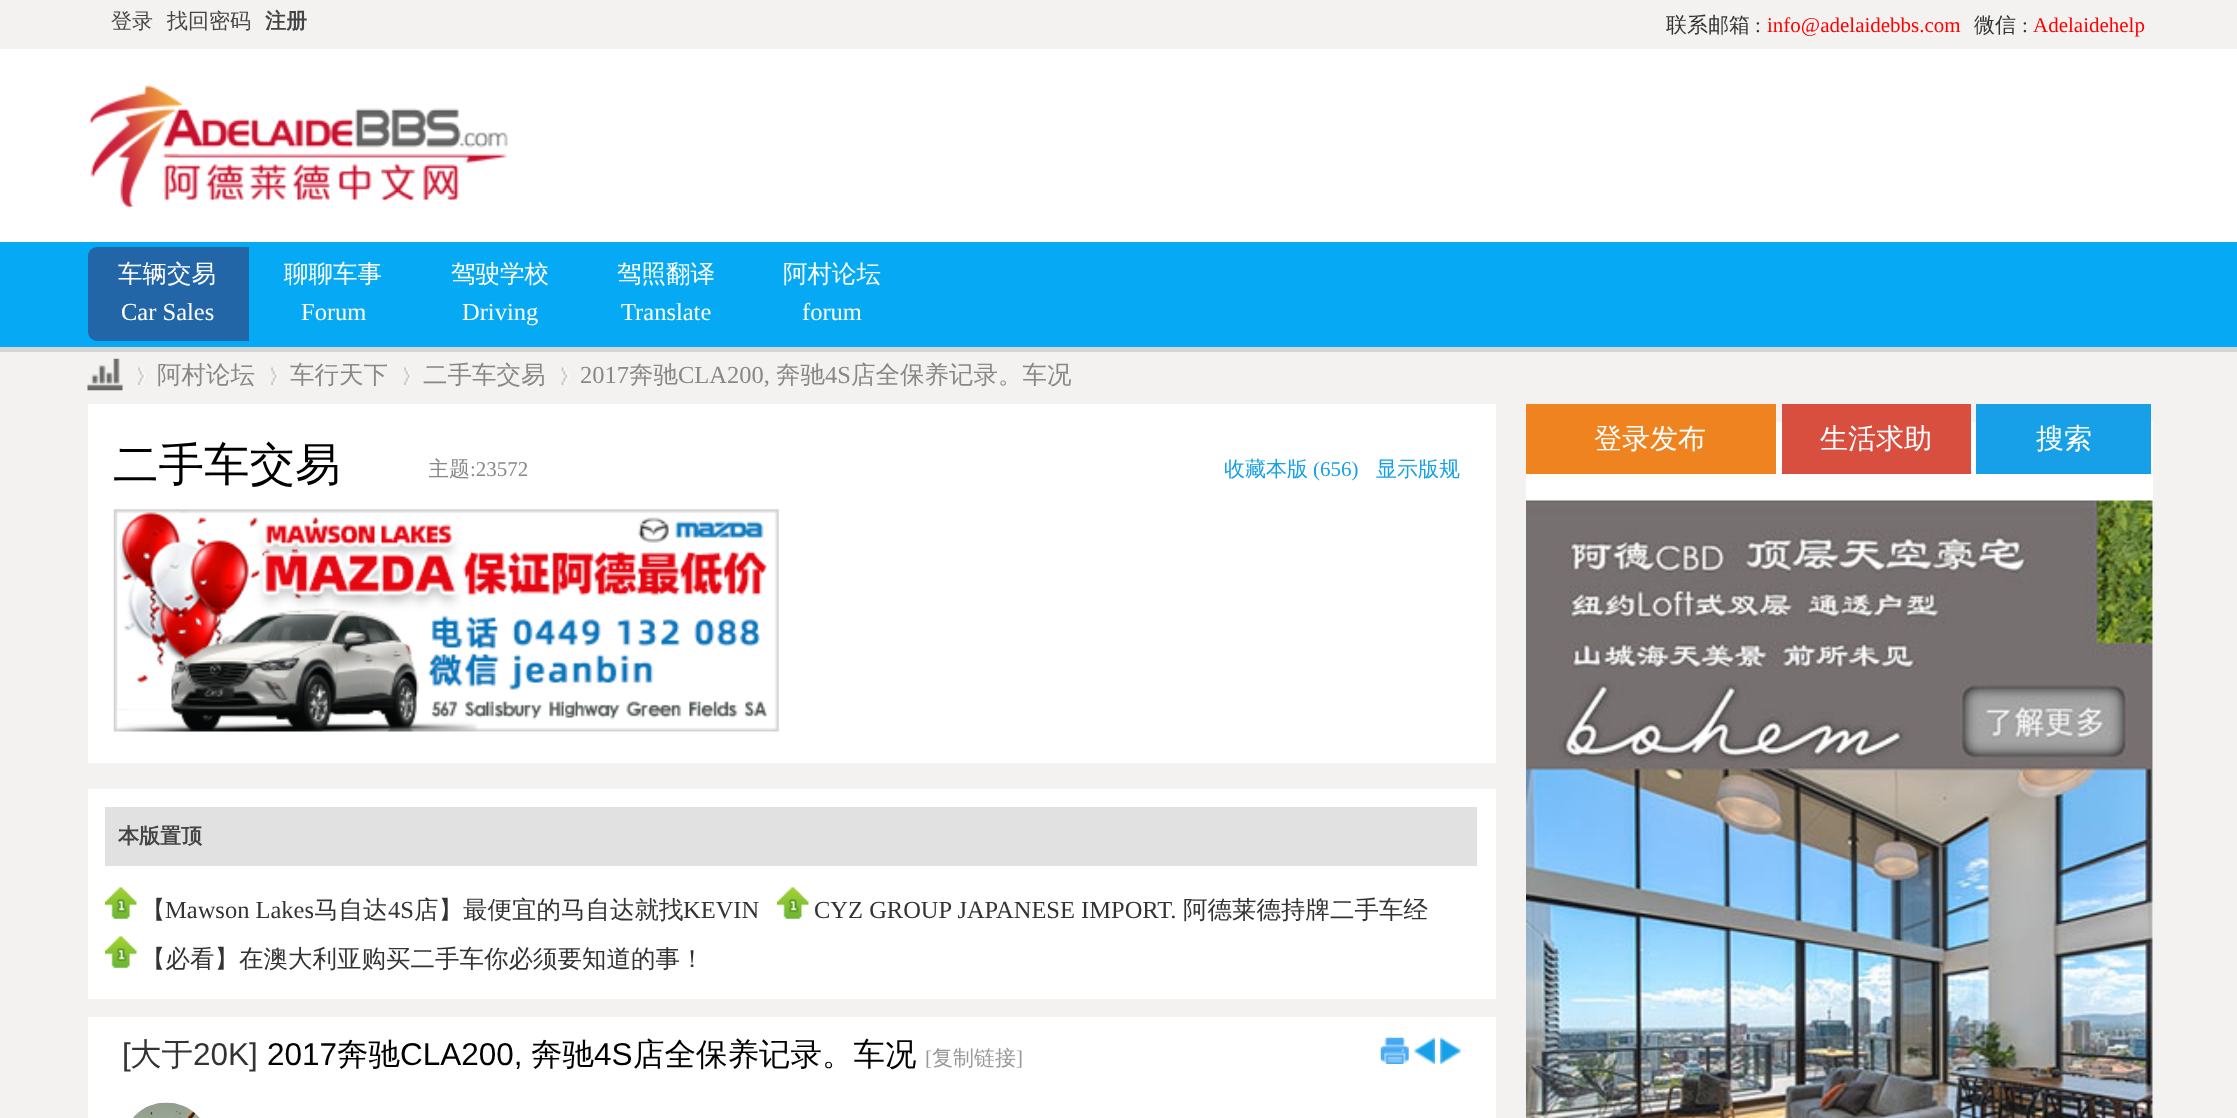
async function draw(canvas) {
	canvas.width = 2237;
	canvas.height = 1118;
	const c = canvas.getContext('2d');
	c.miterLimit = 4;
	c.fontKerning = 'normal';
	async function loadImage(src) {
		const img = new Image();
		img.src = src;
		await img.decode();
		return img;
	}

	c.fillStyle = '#f3f2f1';
	c.fillRect(0, 0, 2237, 1118);
	c.fillStyle = '#d6d5d4';
	c.fillRect(0, 347, 2237, 5);
	c.font = '500 21px WenQuanYi Zen Hei';
	c.fillStyle = '#444';
	c.fillText('登录', 111, 28);
	c.fillText('找回密码', 167, 28);
	c.font = 'bold 21px WenQuanYi Zen Hei';
	c.fillText('注册', 265, 28);
	c.font = '500 21px WenQuanYi Zen Hei';
	c.fillStyle = '#333';
	c.fillText('联系邮箱', 1666, 32);
	c.font = '21px Liberation Serif';
	c.fillText(':', 1755, 32);
	c.fillStyle = '#f00';
	c.fillText('info@adelaidebbs.com', 1767, 32);
	c.font = '500 21px WenQuanYi Zen Hei';
	c.fillStyle = '#333';
	c.fillText('微信', 1974, 32);
	c.font = '21px Liberation Serif';
	c.fillText(':', 2022, 32);
	c.fillStyle = '#f00';
	c.fillText('Adelaidehelp', 2033, 32);
	c.fillStyle = '#fff';
	c.fillRect(0, 49, 2237, 193);
	c.drawImage(await loadImage('img1.png'), 89, 85, 419, 123);
	c.fillStyle = '#06a9f4';
	c.fillRect(0, 242, 2237, 105);
	c.fillStyle = '#2366a8';
	c.beginPath();
	c.roundRect(88, 247, 161, 94, [9, 0, 0, 9]);
	c.fill();
	c.font = '500 24.5px WenQuanYi Zen Hei';
	c.fillStyle = '#fff';
	c.fillText('车辆交易', 118, 282);
	c.font = '24.5px Liberation Serif';
	c.fillText('Car Sales', 121, 320);
	c.font = '500 24.5px WenQuanYi Zen Hei';
	c.fillText('聊聊车事', 284, 282);
	c.font = '24.5px Liberation Serif';
	c.fillText('Forum', 301, 320);
	c.font = '500 24.5px WenQuanYi Zen Hei';
	c.fillText('驾驶学校', 451, 282);
	c.font = '24.5px Liberation Serif';
	c.fillText('Driving', 462, 320);
	c.font = '500 24.5px WenQuanYi Zen Hei';
	c.fillText('驾照翻译', 617, 282);
	c.font = '24.5px Liberation Serif';
	c.fillText('Translate', 621, 320);
	c.font = '500 24.5px WenQuanYi Zen Hei';
	c.fillText('阿村论坛', 783, 282);
	c.font = '24.5px Liberation Serif';
	c.fillText('forum', 802, 320);
	c.drawImage(await loadImage('img2.png'), 87, 358, 36, 33);
	c.drawImage(await loadImage('img3.png'), 138, 367, 7, 18);
	c.font = '500 24.5px WenQuanYi Zen Hei';
	c.fillStyle = '#898787';
	c.fillText('阿村论坛', 157, 383);
	c.drawImage(await loadImage('img3.png'), 271, 367, 7, 18);
	c.fillText('车行天下', 290, 383);
	c.drawImage(await loadImage('img3.png'), 404, 367, 7, 18);
	c.fillText('二手车交易', 423, 383);
	c.drawImage(await loadImage('img4.png'), 561, 367, 8, 18);
	c.font = '24.5px Liberation Serif';
	c.fillText('2017', 580, 383);
	c.font = '500 24.5px WenQuanYi Zen Hei';
	c.fillText('奔驰', 629, 383);
	c.font = '24.5px Liberation Serif';
	c.fillText('CLA200,', 678, 383);
	c.font = '500 24.5px WenQuanYi Zen Hei';
	c.fillText('奔驰', 776, 383);
	c.font = '24.5px Liberation Serif';
	c.fillText('4S', 825, 383);
	c.font = '500 24.5px WenQuanYi Zen Hei';
	c.fillText('店全保养记录。车况', 851, 383);
	c.fillStyle = '#fff';
	c.fillRect(1526, 422, 627, 696);
	c.drawImage(await loadImage('img5.png'), 1526, 500, 627, 618);
	c.fillStyle = '#ee831f';
	c.fillRect(1526, 404, 250, 70);
	c.font = '500 28px WenQuanYi Zen Hei';
	c.fillStyle = '#fff';
	c.fillText('登录发布', 1594, 448);
	c.fillStyle = '#d84f40';
	c.fillRect(1782, 404, 189, 70);
	c.fillStyle = '#fff';
	c.fillText('生活求助', 1820, 448);
	c.fillStyle = '#17a0e8';
	c.fillRect(1976, 404, 175, 70);
	c.fillStyle = '#fff';
	c.fillText('搜索', 2036, 448);
	c.fillRect(88, 404, 1408, 359);
	c.font = '500 45.5px WenQuanYi Zen Hei';
	c.fillStyle = '#000';
	c.fillText('二手车交易', 113, 480);
	c.save();
	c.beginPath();
	c.rect(429, 431, 100, 78);
	c.clip();
	c.font = '500 21px WenQuanYi Zen Hei';
	c.fillStyle = '#898787';
	c.fillText('主题', 428, 476);
	c.restore();
	c.font = '21px Liberation Serif';
	c.fillStyle = '#898787';
	c.fillText(':23572', 470, 476);
	c.font = '500 21px WenQuanYi Zen Hei';
	c.fillStyle = '#15a0e8';
	c.fillText('收藏本版', 1224, 476);
	c.font = '21px Liberation Serif';
	c.fillText('(656)', 1313, 476);
	c.font = '500 21px WenQuanYi Zen Hei';
	c.fillText('显示版规', 1376, 476);
	c.drawImage(await loadImage('img6.png'), 113, 509, 666, 223);
	c.fillStyle = '#fff';
	c.fillRect(88, 789, 1408, 210);
	c.fillStyle = '#e1e1e1';
	c.fillRect(105, 807, 1372, 59);
	c.font = 'bold 21px WenQuanYi Zen Hei';
	c.fillStyle = '#444';
	c.fillText('本版置顶', 118, 843);
	c.drawImage(await loadImage('img7.png'), 105, 887, 32, 32);
	c.font = '500 24.5px WenQuanYi Zen Hei';
	c.fillStyle = '#333';
	c.fillText('【', 141, 918);
	c.font = '24.5px Liberation Serif';
	c.fillText('Mawson Lakes', 165, 918);
	c.font = '500 24.5px WenQuanYi Zen Hei';
	c.fillText('马自达', 314, 918);
	c.font = '24.5px Liberation Serif';
	c.fillText('4S', 388, 918);
	c.font = '500 24.5px WenQuanYi Zen Hei';
	c.fillText('店】最便宜的马自达就找', 414, 918);
	c.font = '24.5px Liberation Serif';
	c.fillText('KEVIN', 683, 918);
	c.drawImage(await loadImage('img8.png'), 777, 887, 32, 32);
	c.fillText('CYZ GROUP JAPANESE IMPORT.', 814, 918);
	c.font = '500 24.5px WenQuanYi Zen Hei';
	c.fillText('阿德莱德持牌二手车经', 1183, 918);
	c.drawImage(await loadImage('img7.png'), 105, 936, 32, 32);
	c.fillText('【必看】在澳大利亚购买二手车你必须要知道的事！', 141, 967);
	c.fillStyle = '#fff';
	c.fillRect(88, 1017, 1408, 101);
	c.font = '31.5px Liberation Sans';
	c.fillStyle = '#333';
	c.fillText('[', 122, 1065);
	c.font = '500 31.5px WenQuanYi Zen Hei';
	c.fillText('大于', 130, 1065);
	c.font = '31.5px Liberation Sans';
	c.fillText('20K]', 193, 1065);
	c.fillStyle = '#000';
	c.fillText('2017', 267, 1065);
	c.font = '500 31.5px WenQuanYi Zen Hei';
	c.fillText('奔驰', 337, 1065);
	c.font = '31.5px Liberation Sans';
	c.fillText('CLA200,', 400, 1065);
	c.font = '500 31.5px WenQuanYi Zen Hei';
	c.fillText('奔驰', 531, 1065);
	c.font = '31.5px Liberation Sans';
	c.fillText('4S', 594, 1065);
	c.font = '500 31.5px WenQuanYi Zen Hei';
	c.fillText('店全保养记录。车况', 633, 1065);
	c.font = '21px Liberation Serif';
	c.fillStyle = '#999';
	c.fillText('[', 925, 1065);
	c.font = '500 21px WenQuanYi Zen Hei';
	c.fillText('复制链接', 932, 1065);
	c.font = '21px Liberation Serif';
	c.fillText(']', 1016, 1065);
	c.drawImage(await loadImage('img9.png'), 1380, 1037, 29, 27);
	c.drawImage(await loadImage('img10.png'), 1414, 1037, 21, 27);
	c.drawImage(await loadImage('img11.png'), 1440, 1037, 22, 27);
	c.drawImage(await loadImage('img12.png'), 133, 1102, 67, 16);
}

draw(document.querySelector('canvas'));
